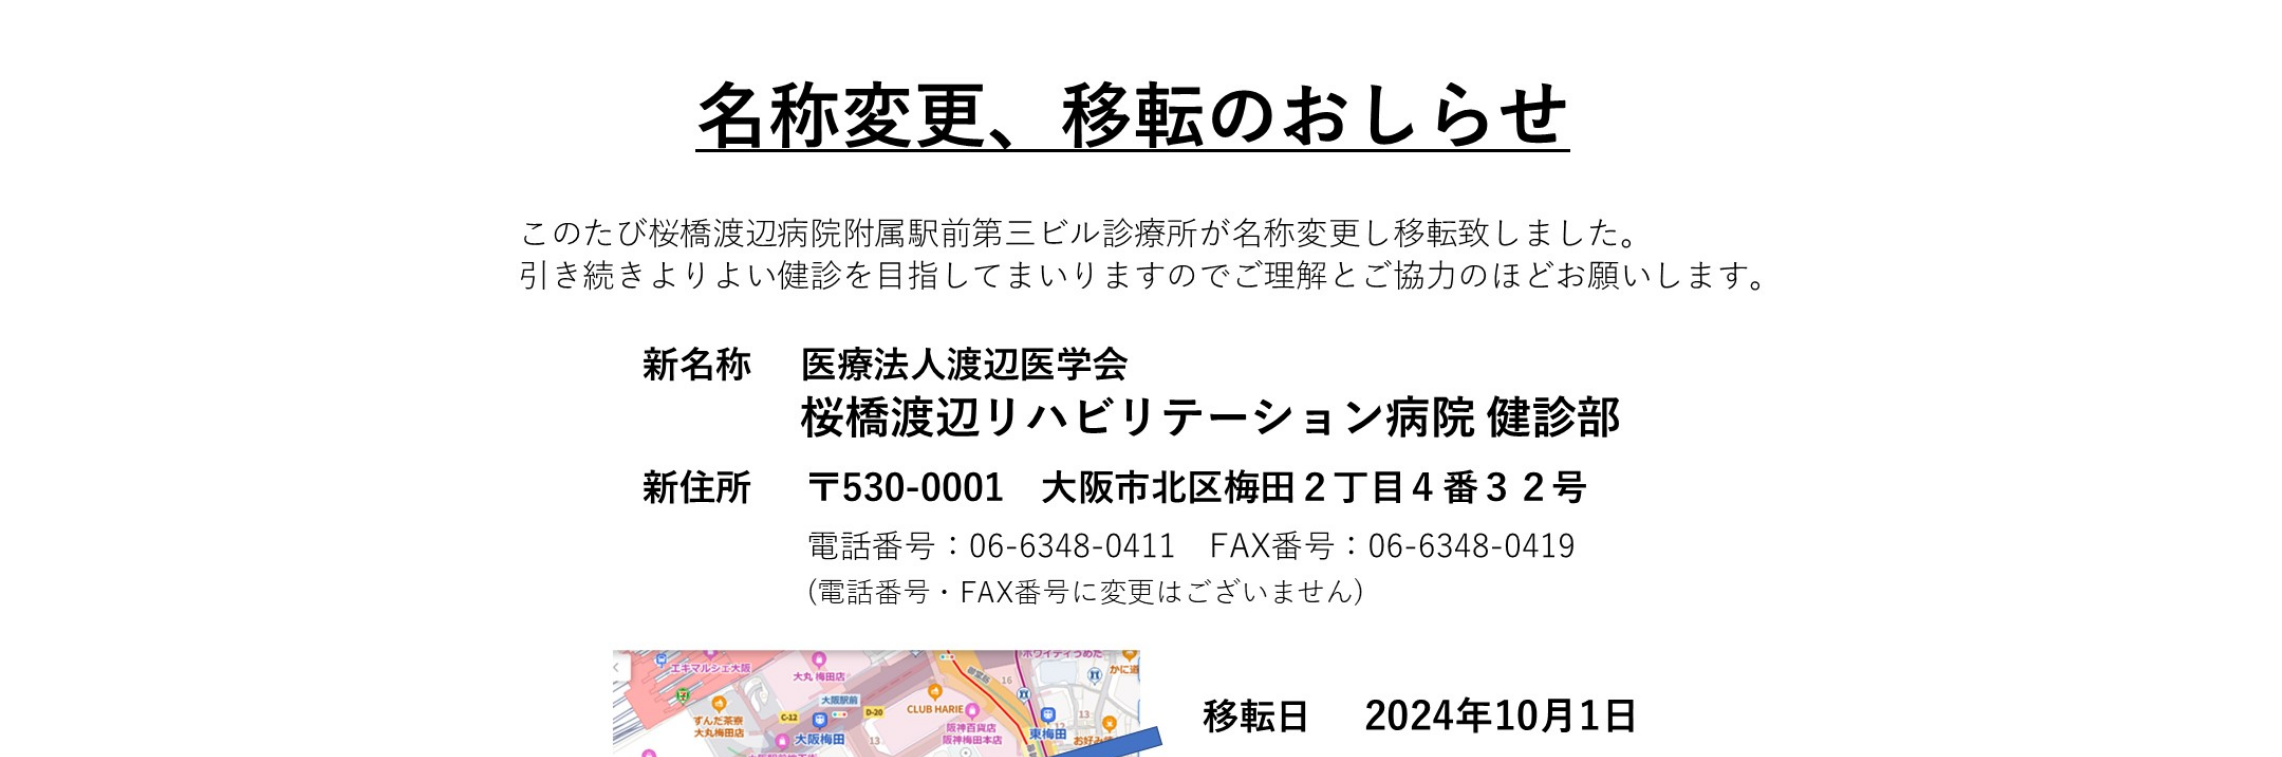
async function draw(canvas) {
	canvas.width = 2282;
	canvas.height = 757;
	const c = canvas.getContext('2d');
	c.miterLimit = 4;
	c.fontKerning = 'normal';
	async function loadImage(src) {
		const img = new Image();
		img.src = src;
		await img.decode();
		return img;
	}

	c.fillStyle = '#fff';
	c.fillRect(0, 0, 2282, 757);
	c.drawImage(await loadImage('img1.png'), 516, 76, 1249, 681);
}

draw(document.querySelector('canvas'));
